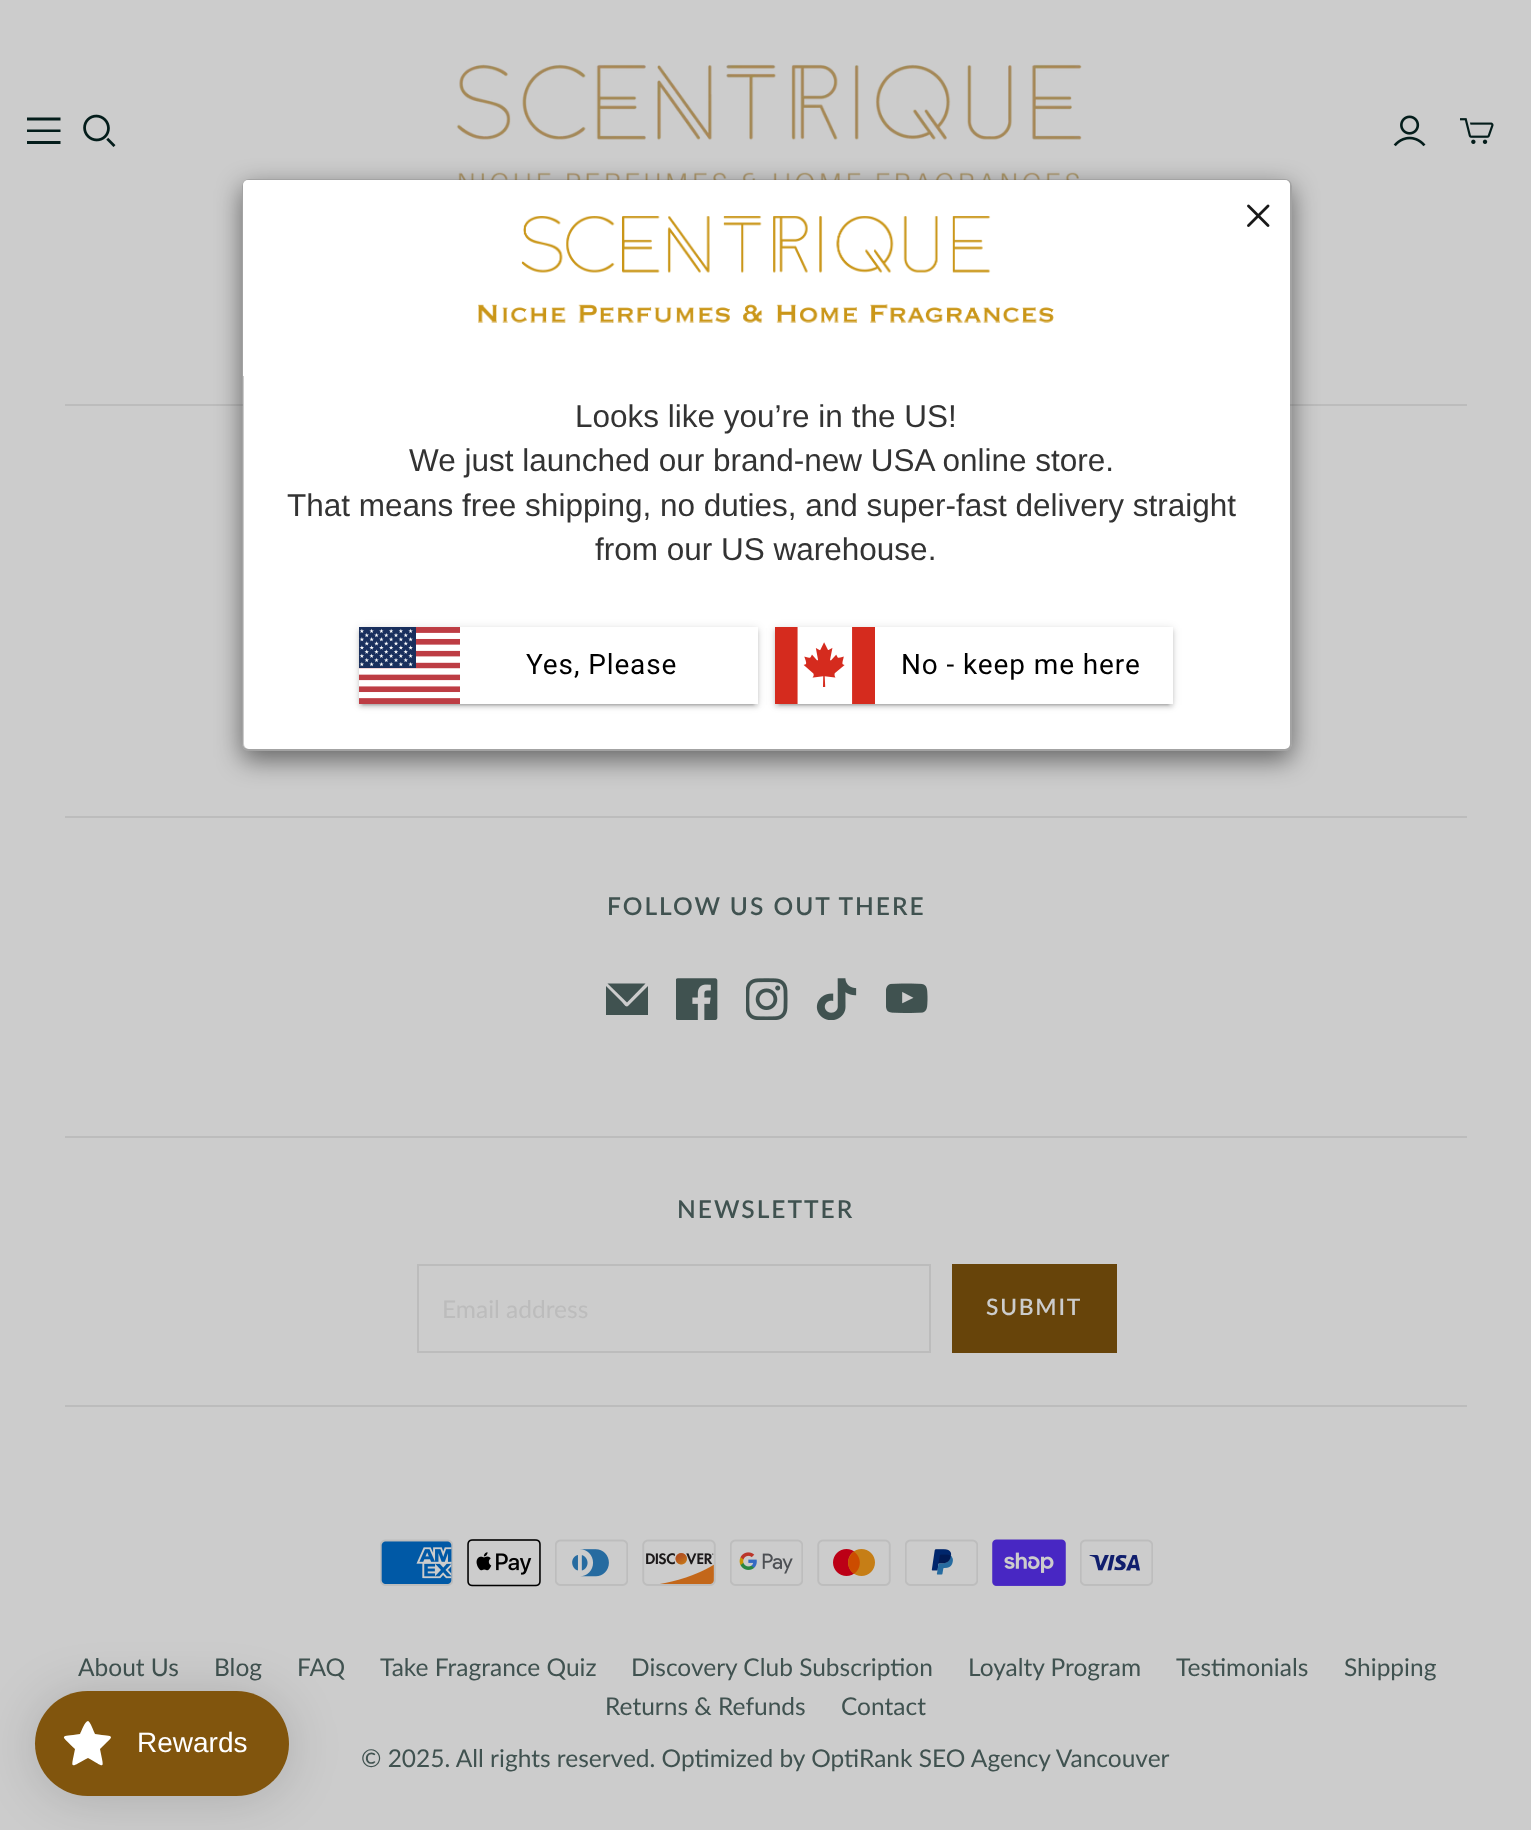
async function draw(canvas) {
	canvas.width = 1531;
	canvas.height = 1830;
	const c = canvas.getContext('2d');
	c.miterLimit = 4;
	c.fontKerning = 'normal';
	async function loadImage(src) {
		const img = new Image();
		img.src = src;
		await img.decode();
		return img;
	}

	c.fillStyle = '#ccc';
	c.fillRect(0, 0, 1531, 1830);
	c.drawImage(await loadImage('img1.png'), 456, 64, 626, 116);
	c.fillStyle = '#041d1b';
	c.beginPath();
	c.moveTo(60.5, 120.5);
	c.lineTo(27, 120.5);
	c.lineTo(27, 117.5);
	c.lineTo(60.5, 117.5);
	c.closePath();
	c.moveTo(60.5, 132);
	c.lineTo(27, 132);
	c.lineTo(27, 129.5);
	c.lineTo(60.5, 129.5);
	c.closePath();
	c.moveTo(27, 144);
	c.lineTo(60.5, 144);
	c.lineTo(60.5, 141);
	c.lineTo(27, 141);
	c.closePath();
	c.fill('evenodd');
	c.drawImage(await loadImage('img2.png'), 83, 114, 33, 33);
	c.drawImage(await loadImage('img3.png'), 1393, 115, 33, 32);
	c.drawImage(await loadImage('img4.png'), 1460, 118, 34, 26);
	c.fillStyle = '#bcbcbc';
	c.fillRect(65, 404, 1402, 2);
	c.save();
	c.beginPath();
	c.moveTo(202, 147);
	c.lineTo(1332, 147);
	c.lineTo(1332, 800);
	c.lineTo(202, 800);
	c.closePath();
	c.moveTo(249, 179);
	c.lineTo(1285, 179);
	c.bezierCurveTo(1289, 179, 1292, 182, 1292, 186);
	c.lineTo(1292, 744);
	c.bezierCurveTo(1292, 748, 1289, 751, 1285, 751);
	c.lineTo(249, 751);
	c.bezierCurveTo(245, 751, 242, 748, 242, 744);
	c.lineTo(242, 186);
	c.bezierCurveTo(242, 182, 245, 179, 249, 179);
	c.closePath();
	c.clip('evenodd');
	c.fillStyle = '#00000080';
	c.filter = 'blur(13px)';
	c.beginPath();
	c.roundRect(242, 187, 1050, 573, 7);
	c.fill();
	c.filter = 'none';
	c.restore();
	c.fillStyle = '#fff';
	c.beginPath();
	c.roundRect(243, 180, 1047, 569, 5);
	c.fill();
	c.beginPath();
	c.roundRect(243, 180, 1048, 570, 6);
	c.strokeStyle = '#00000033';
	c.lineWidth = 2;
	c.stroke();
	c.beginPath();
	c.roundRect(243, 180, 1047, 196, [5, 5, 0, 0]);
	c.fill();
	c.drawImage(await loadImage('img5.png'), 478, 216, 576, 107);
	c.drawImage(await loadImage('img6.png'), 1247, 204, 23, 23);
	c.font = '31.5px Liberation Sans';
	c.fillStyle = '#333';
	for (const [text, x, y] of [
		['Looks like you’re in the US!', 575, 427],
		['We just launched our brand-new USA online store.', 409, 471],
		['That means free shipping, no duties, and super-fast delivery straight', 287, 516],
		['from our US warehouse.', 595, 560],
	]) {
		c.fillText(text, x, y);
	}
	c.fillStyle = '#0000001f';
	c.filter = 'blur(4.5px)';
	c.beginPath();
	c.rect(359, 628, 399, 77);
	c.fill();
	c.filter = 'none';
	c.fillStyle = '#00000033';
	c.filter = 'blur(1px)';
	c.beginPath();
	c.rect(362, 635, 392, 70);
	c.fill();
	c.filter = 'none';
	c.fillStyle = '#00000024';
	c.filter = 'blur(2px)';
	c.beginPath();
	c.rect(359, 630, 399, 77);
	c.fill();
	c.filter = 'none';
	c.fillStyle = '#fff';
	c.fillRect(359, 627, 399, 77);
	c.drawImage(await loadImage('img7.png'), 359, 627, 101, 77);
	c.letterSpacing = '0.9px';
	c.font = '28px Roboto';
	c.fillStyle = '#000';
	c.fillText('Yes, Please', 526, 674);
	c.fillStyle = '#0000001f';
	c.filter = 'blur(4.5px)';
	c.beginPath();
	c.rect(775, 628, 398, 77);
	c.fill();
	c.filter = 'none';
	c.fillStyle = '#00000033';
	c.filter = 'blur(1px)';
	c.beginPath();
	c.rect(779, 635, 390, 70);
	c.fill();
	c.filter = 'none';
	c.fillStyle = '#00000024';
	c.filter = 'blur(2px)';
	c.beginPath();
	c.rect(775, 630, 398, 77);
	c.fill();
	c.filter = 'none';
	c.fillStyle = '#fff';
	c.fillRect(797, 627, 376, 77);
	c.drawImage(await loadImage('img8.png'), 775, 627, 100, 77);
	c.fillStyle = '#000';
	c.fillText('No - keep me here', 901, 674);
	c.fillStyle = '#bcbcbc';
	c.fillRect(65, 1405, 1402, 2);
	c.fillRect(65, 816, 1402, 2);
	c.letterSpacing = '2px';
	c.font = '600 24.5px Lato';
	c.fillStyle = '#405250';
	c.fillText('FOLLOW US OUT THERE', 607, 915);
	c.beginPath();
	c.moveTo(628, 1006);
	c.bezierCurveTo(626, 1008, 623, 1003, 622, 1002);
	c.lineTo(606, 986);
	c.lineTo(606, 1015);
	c.lineTo(648, 1015);
	c.lineTo(648, 986);
	c.closePath();
	c.fill();
	c.beginPath();
	c.moveTo(645.5, 983.5);
	c.lineTo(607.5, 983.5);
	c.lineTo(627, 1002.5);
	c.closePath();
	c.fill();
	c.drawImage(await loadImage('img9.png'), 676, 978, 42, 42);
	c.drawImage(await loadImage('img10.png'), 746, 978, 42, 42);
	c.drawImage(await loadImage('img11.png'), 816, 978, 41, 42);
	c.drawImage(await loadImage('img12.png'), 886, 983, 42, 30);
	c.fillStyle = '#bcbcbc';
	c.fillRect(65, 1136, 1402, 2);
	c.fillStyle = '#405250';
	c.fillText('NEWSLETTER', 677, 1218);
	c.strokeStyle = '#bcbcbc';
	c.strokeRect(418, 1265, 512, 87);
	c.letterSpacing = '0px';
	c.font = '24.5px Lato';
	c.fillStyle = '#bcbcbc';
	c.fillText('Email address', 442, 1318);
	c.fillStyle = '#67440a';
	c.fillRect(952, 1264, 165, 89);
	c.letterSpacing = '1.75px';
	c.font = '600 22.75px Lato';
	c.fillStyle = '#ccc';
	c.fillText('SUBMIT', 986, 1315);
	c.drawImage(await loadImage('img13.png'), 380, 1539, 73, 47);
	c.drawImage(await loadImage('img14.png'), 467, 1539, 74, 48);
	c.drawImage(await loadImage('img15.png'), 555, 1539, 73, 47);
	c.drawImage(await loadImage('img16.png'), 642, 1539, 74, 47);
	c.drawImage(await loadImage('img17.png'), 730, 1539, 73, 47);
	c.drawImage(await loadImage('img18.png'), 817, 1539, 74, 47);
	c.drawImage(await loadImage('img19.png'), 905, 1539, 73, 47);
	c.drawImage(await loadImage('img20.png'), 992, 1539, 74, 47);
	c.drawImage(await loadImage('img21.png'), 1080, 1539, 73, 47);
	c.letterSpacing = '0px';
	c.font = '24.5px Lato';
	c.fillStyle = '#405250';
	for (const [text, x, y] of [
		['About Us', 78, 1676],
		['Blog', 214, 1676],
		['FAQ', 297, 1676],
		['Take Fragrance Quiz', 380, 1676],
		['Discovery Club Subscription', 631, 1676],
		['Loyalty Program', 968, 1676],
		['Testimonials', 1176, 1676],
		['Shipping', 1344, 1676],
		['Returns & Refunds', 605, 1715],
		['Contact', 841, 1715],
		['© 2025. All rights reserved. Optimized by OptiRank SEO Agency Vancouver', 361, 1767],
	]) {
		c.fillText(text, x, y);
	}
	c.fillStyle = '#00000026';
	c.filter = 'blur(26px)';
	c.beginPath();
	c.roundRect(35, 1694, 254, 105, 52.5);
	c.fill();
	c.filter = 'none';
	c.fillStyle = '#81550d';
	c.beginPath();
	c.roundRect(35, 1691, 254, 105, 52.5);
	c.fill();
	c.fillStyle = '#fff';
	c.beginPath();
	c.moveTo(88, 1721);
	c.bezierCurveTo(85, 1721, 81, 1732, 80, 1734);
	c.bezierCurveTo(59, 1737, 60, 1734, 75, 1749);
	c.bezierCurveTo(71, 1770, 69, 1768, 88, 1758);
	c.bezierCurveTo(106, 1768, 104, 1770, 100, 1749);
	c.bezierCurveTo(115, 1734, 116, 1737, 95, 1734);
	c.bezierCurveTo(94, 1732, 90, 1721, 88, 1721);
	c.closePath();
	c.fill();
	c.font = '28px Liberation Sans';
	c.fillText('Rewards', 137, 1752);
}

draw(document.querySelector('canvas'));
